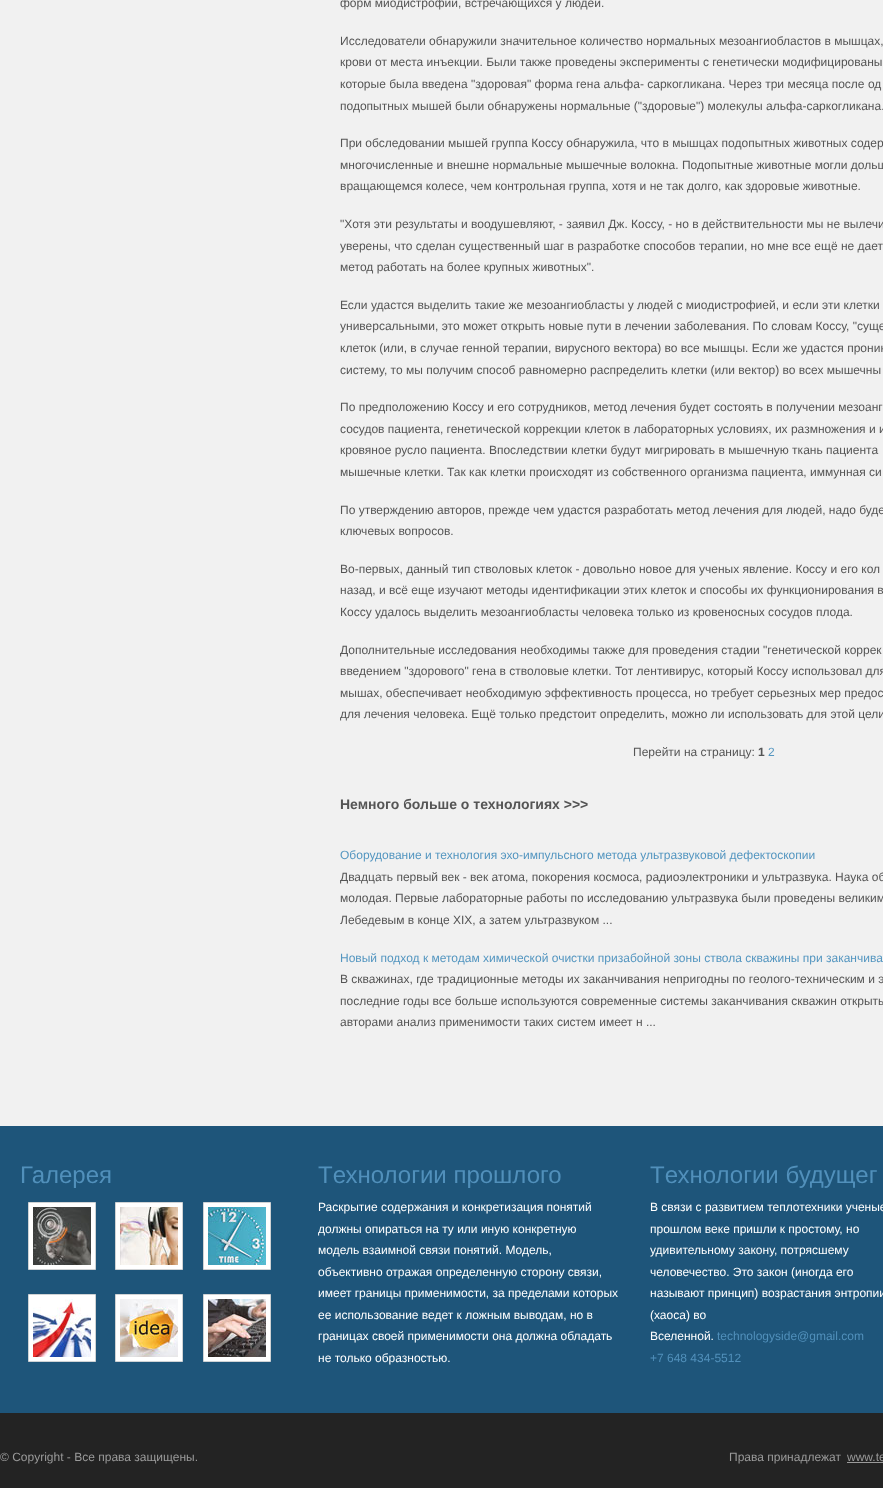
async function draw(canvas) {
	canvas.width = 883;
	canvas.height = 1488;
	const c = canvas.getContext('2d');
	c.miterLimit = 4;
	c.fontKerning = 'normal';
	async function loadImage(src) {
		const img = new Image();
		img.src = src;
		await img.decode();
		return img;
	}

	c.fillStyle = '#f1f1f1';
	c.fillRect(0, 0, 883, 1488);
	c.font = '12px Liberation Sans';
	c.fillStyle = '#555';
	for (const [text, x, y] of [
		['форм миодистрофий, встречающихся у людей.', 340, 7],
		['Исследователи обнаружили значительное количество нормальных мезоангиобластов в мышцах,', 340, 45],
		['крови от места инъекции. Были также проведены эксперименты с генетически модифицированы', 340, 66],
		['которые была введена "здоровая" форма гена альфа- саркогликана. Через три месяца после од', 340, 88],
		['подопытных мышей были обнаружены нормальные ("здоровые") молекулы альфа-саркогликана.', 340, 110],
		['При обследовании мышей группа Коссу обнаружила, что в мышцах подопытных животных содер', 340, 147],
		['многочисленные и внешне нормальные мышечные волокна. Подопытные животные могли дольш', 340, 169],
		['вращающемся колесе, чем контрольная группа, хотя и не так долго, как здоровые животные.', 340, 190],
		['"Хотя эти результаты и воодушевляют, - заявил Дж. Коссу, - но в действительности мы не вылечи', 340, 228],
		['уверены, что сделан существенный шаг в разработке способов терапии, но мне все ещё не дает', 340, 250],
		['метод работать на более крупных животных".', 340, 271],
		['Если удастся выделить такие же мезоангиобласты у людей с миодистрофией, и если эти клетки', 340, 309],
		['универсальными, это может открыть новые пути в лечении заболевания. По словам Коссу, "суще', 340, 330],
		['клеток (или, в случае генной терапии, вирусного вектора) во все мышцы. Если же удастся проник', 340, 352],
		['систему, то мы получим способ равномерно распределить клетки (или вектор) во всех мышечны', 340, 374],
		['По предположению Коссу и его сотрудников, метод лечения будет состоять в получении мезоанг', 340, 411],
		['сосудов пациента, генетической коррекции клеток в лабораторных условиях, их размножения и и', 340, 433],
		['кровяное русло пациента. Впоследствии клетки будут мигрировать в мышечную ткань пациента', 340, 454],
		['мышечные клетки. Так как клетки происходят из собственного организма пациента, иммунная си', 340, 476],
		['По утверждению авторов, прежде чем удастся разработать метод лечения для людей, надо буде', 340, 514],
		['ключевых вопросов.', 340, 535],
		['Во-первых, данный тип стволовых клеток - довольно новое для ученых явление. Коссу и его кол', 340, 573],
		['назад, и всё еще изучают методы идентификации этих клеток и способы их функционирования в', 340, 594],
		['Коссу удалось выделить мезоангиобласты человека только из кровеносных сосудов плода.', 340, 616],
		['Дополнительные исследования необходимы также для проведения стадии "генетической коррек', 340, 654],
		['введением "здорового" гена в стволовые клетки. Тот лентивирус, который Коссу использовал для', 340, 675],
		['мышах, обеспечивает необходимую эффективность процесса, но требует серьезных мер предос', 340, 697],
		['для лечения человека. Ещё только предстоит определить, можно ли использовать для этой цели', 340, 718],
		['Перейти на страницу:', 633, 756],
	]) {
		c.fillText(text, x, y);
	}
	c.font = 'bold 12px Liberation Sans';
	c.fillText('1', 758, 756);
	c.font = '12px Liberation Sans';
	c.fillStyle = '#5496c0';
	c.fillText('2', 768, 756);
	c.font = 'bold 14px Liberation Sans';
	c.fillStyle = '#555';
	c.fillText('Немного больше о технологиях >>>', 340, 809);
	c.font = '12px Liberation Sans';
	c.fillStyle = '#5496c0';
	c.fillText('Оборудование и технология эхо-импульсного метода ультразвуковой дефектоскопии', 340, 859);
	c.fillStyle = '#555';
	for (const [text, x, y] of [
		['Двадцать первый век - век атома, покорения космоса, радиоэлектроники и ультразвука. Наука об', 340, 881],
		['молодая. Первые лабораторные работы по исследованию ультразвука были проведены великим', 340, 902],
		['Лебедевым в конце XIX, а затем ультразвуком ...', 340, 924],
	]) {
		c.fillText(text, x, y);
	}
	c.fillStyle = '#5496c0';
	c.fillText('Новый подход к методам химической очистки призабойной зоны ствола скважины при заканчива', 340, 962);
	c.fillStyle = '#555';
	for (const [text, x, y] of [
		['В скважинах, где традиционные методы их заканчивания непригодны по геолого-техническим и э', 340, 983],
		['последние годы все больше используются современные системы заканчивания скважин открыты', 340, 1005],
		['авторами анализ применимости таких систем имеет н ...', 340, 1026],
	]) {
		c.fillText(text, x, y);
	}
	c.fillStyle = '#1e557a';
	c.fillRect(0, 1126, 883, 287);
	c.fillStyle = '#232323';
	c.fillRect(0, 1413, 883, 75);
	c.font = '24px Liberation Sans';
	c.fillStyle = '#5190bb';
	c.fillText('Галерея', 20, 1183);
	c.fillStyle = '#fff';
	c.beginPath();
	c.rect(28.5, 1202.5, 67, 67);
	c.fill();
	c.strokeStyle = '#cfd2d4';
	c.stroke();
	c.beginPath();
	c.rect(115.5, 1202.5, 67, 67);
	c.fill();
	c.stroke();
	c.beginPath();
	c.rect(203.5, 1202.5, 67, 67);
	c.fill();
	c.stroke();
	c.drawImage(await loadImage('img1.png'), 33, 1207, 58, 58);
	c.drawImage(await loadImage('img2.png'), 120, 1207, 58, 58);
	c.drawImage(await loadImage('img3.png'), 208, 1207, 58, 58);
	c.beginPath();
	c.rect(28.5, 1294.5, 67, 67);
	c.fill();
	c.stroke();
	c.beginPath();
	c.rect(115.5, 1294.5, 67, 67);
	c.fill();
	c.stroke();
	c.beginPath();
	c.rect(203.5, 1294.5, 67, 67);
	c.fill();
	c.stroke();
	c.drawImage(await loadImage('img4.png'), 33, 1299, 58, 58);
	c.drawImage(await loadImage('img5.png'), 120, 1299, 58, 58);
	c.drawImage(await loadImage('img6.png'), 208, 1299, 58, 58);
	c.fillStyle = '#5190bb';
	c.fillText('Tехнологии прошлого', 318, 1183);
	c.font = '12px Liberation Sans';
	c.fillStyle = '#fff';
	for (const [text, x, y] of [
		['Раскрытие содержания и конкретизация понятий', 318, 1211],
		['должны опираться на ту или иную конкретную', 318, 1233],
		['модель взаимной связи понятий. Модель,', 318, 1254],
		['объективно отражая определенную сторону связи,', 318, 1276],
		['имеет границы применимости, за пределами которых', 318, 1297],
		['ее использование ведет к ложным выводам, но в', 318, 1319],
		['границах своей применимости она должна обладать', 318, 1340],
		['не только образностью.', 318, 1362],
	]) {
		c.fillText(text, x, y);
	}
	c.font = '24px Liberation Sans';
	c.fillStyle = '#5190bb';
	c.fillText('Tехнологии будущег', 650, 1183);
	c.font = '12px Liberation Sans';
	c.fillStyle = '#fff';
	for (const [text, x, y] of [
		['В связи с развитием теплотехники ученые', 650, 1211],
		['прошлом веке пришли к простому, но', 650, 1233],
		['удивительному закону, потрясшему', 650, 1254],
		['человечество. Это закон (иногда его', 650, 1276],
		['называют принцип) возрастания энтропии', 650, 1297],
		['(хаоса) во', 650, 1319],
		['Вселенной.', 650, 1340],
	]) {
		c.fillText(text, x, y);
	}
	c.fillStyle = '#5190bb';
	c.fillText('technologyside@gmail.com', 717, 1340);
	c.fillText('+7 648 434-5512', 650, 1362);
	c.fillStyle = '#9a9a9a';
	for (const [text, x, y] of [
		['© Copyright - Все права защищены.', 0, 1461],
		['Права принадлежат', 729, 1461],
		['www.te', 847, 1461],
	]) {
		c.fillText(text, x, y);
	}
	c.fillRect(847, 1462, 36, 1);
}

draw(document.querySelector('canvas'));
